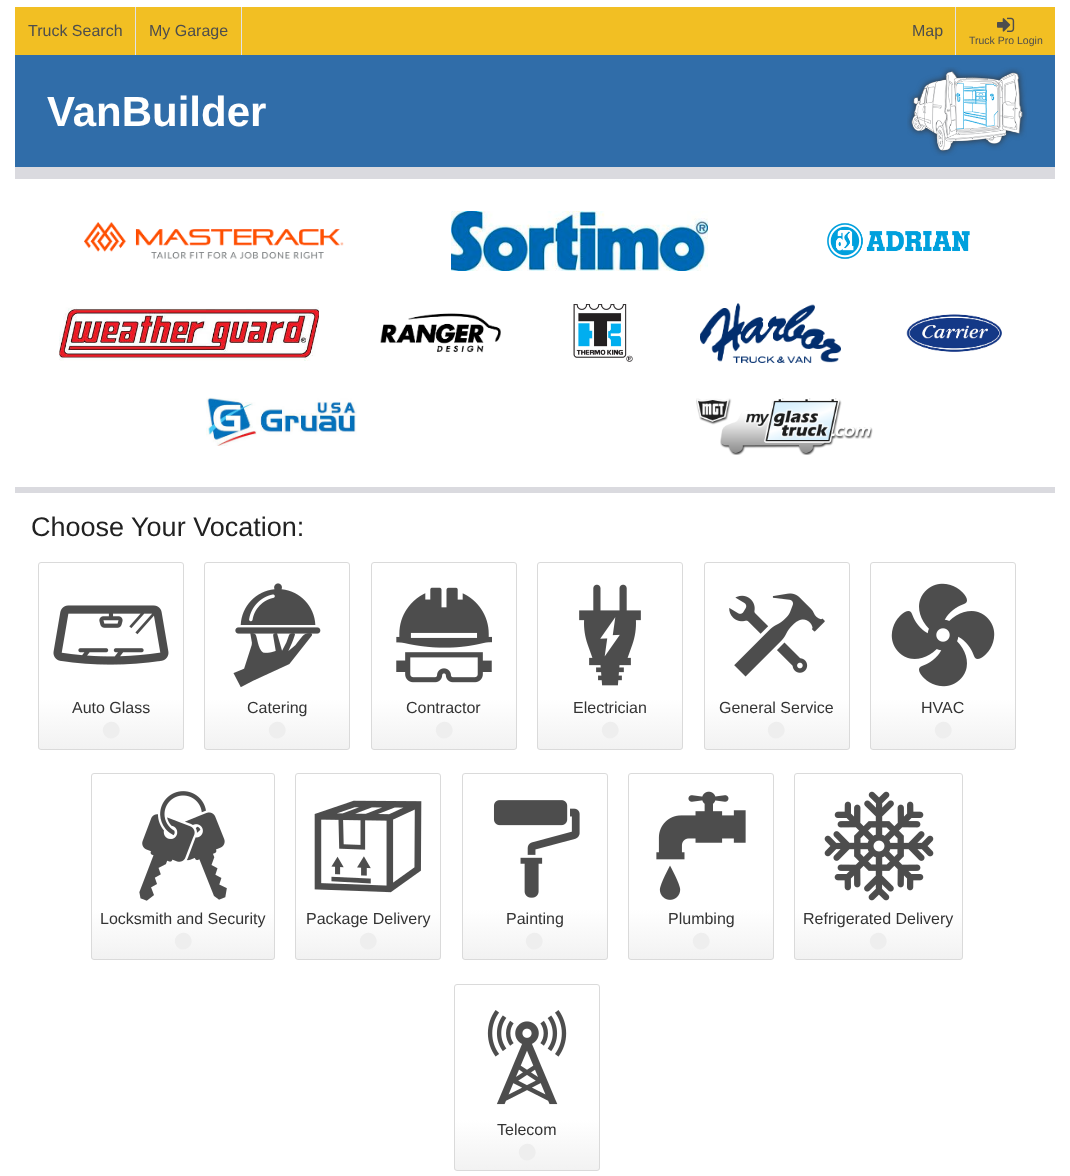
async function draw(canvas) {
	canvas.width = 1070;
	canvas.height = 1176;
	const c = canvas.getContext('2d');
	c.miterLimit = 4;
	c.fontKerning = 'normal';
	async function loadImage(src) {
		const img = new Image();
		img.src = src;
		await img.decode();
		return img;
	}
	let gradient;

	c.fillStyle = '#fff';
	c.fillRect(0, 0, 1070, 1176);
	c.fillStyle = '#f2bf23';
	c.fillRect(15, 7, 1040, 48);
	c.fillStyle = '#e0e2ec';
	c.fillRect(135, 7, 1, 48);
	c.font = '16px Liberation Sans';
	c.fillStyle = '#4d4d4d';
	c.fillText('Truck Search', 28, 36);
	c.fillStyle = '#e0e2ec';
	c.fillRect(241, 7, 1, 48);
	c.fillStyle = '#4d4d4d';
	c.fillText('My Garage', 149, 36);
	c.fillStyle = '#e0e2ec';
	c.fillRect(955, 7, 1, 48);
	c.fillStyle = '#4d4d4d';
	c.fillText('Map', 912, 36);
	c.drawImage(await loadImage('img1.png'), 997, 17, 18, 15);
	c.font = '10.5px Liberation Sans';
	c.fillText('Truck Pro Login', 969, 44);
	c.fillStyle = '#306da9';
	c.fillRect(15, 55, 1040, 112);
	c.fillStyle = '#dadadf';
	c.fillRect(15, 167, 1040, 12);
	c.font = 'bold 42px Liberation Sans';
	c.fillStyle = '#fff';
	c.fillText('VanBuilder', 47, 126);
	c.drawImage(await loadImage('img2.png'), 907, 67, 120, 89);
	c.fillStyle = '#dadadf';
	c.fillRect(15, 487, 1040, 6);
	c.drawImage(await loadImage('img3.png'), 84, 222, 260, 37);
	c.drawImage(await loadImage('img4.png'), 451, 211, 257, 60);
	c.drawImage(await loadImage('img5.png'), 827, 223, 143, 36);
	c.drawImage(await loadImage('img6.png'), 59, 307, 260, 54);
	c.drawImage(await loadImage('img7.png'), 380, 313, 121, 40);
	c.drawImage(await loadImage('img8.png'), 573, 304, 60, 58);
	c.drawImage(await loadImage('img9.png'), 700, 303, 141, 60);
	c.drawImage(await loadImage('img10.png'), 906, 314, 96, 38);
	c.drawImage(await loadImage('img11.png'), 206, 397, 151, 49);
	c.drawImage(await loadImage('img12.png'), 696, 398, 177, 57);
	c.font = '27px Liberation Sans';
	c.fillStyle = '#222';
	c.fillText('Choose Your Vocation:', 31, 536);
	c.save();
	c.beginPath();
	c.roundRect(38, 562, 146, 188, 3);
	c.clip();
	gradient = c.createLinearGradient(111, 563, 111, 749);
	gradient.addColorStop(0.73, '#fff');
	gradient.addColorStop(1, '#f2f2f2');
	c.fillStyle = gradient;
	c.fillRect(38, 563, 146, 186);
	c.restore();
	c.beginPath();
	c.roundRect(38.5, 562.5, 145, 187, 2.5);
	c.strokeStyle = '#dadada';
	c.stroke();
	c.drawImage(await loadImage('img13.png'), 53, 605, 116, 60);
	c.font = '16px Liberation Sans';
	c.fillStyle = '#333';
	c.fillText('Auto Glass', 72, 713);
	c.fillStyle = '#eee';
	c.beginPath();
	c.moveTo(118.5, 726);
	c.bezierCurveTo(124, 735.5, 109.5, 743.5, 104, 734.5);
	c.bezierCurveTo(98.5, 725, 113, 716.5, 118.5, 726);
	c.closePath();
	c.fill();
	c.save();
	c.beginPath();
	c.roundRect(204, 562, 146, 188, 3);
	c.clip();
	gradient = c.createLinearGradient(277, 563, 277, 749);
	gradient.addColorStop(0.73, '#fff');
	gradient.addColorStop(1, '#f2f2f2');
	c.fillStyle = gradient;
	c.fillRect(204, 563, 146, 186);
	c.restore();
	c.beginPath();
	c.roundRect(204.5, 562.5, 145, 187, 2.5);
	c.stroke();
	c.drawImage(await loadImage('img14.png'), 233, 583, 88, 105);
	c.fillStyle = '#333';
	c.fillText('Catering', 247, 713);
	c.fillStyle = '#eee';
	c.beginPath();
	c.moveTo(284.5, 726);
	c.bezierCurveTo(290, 735.5, 275.5, 743.5, 270, 734.5);
	c.bezierCurveTo(264.5, 725, 279, 716.5, 284.5, 726);
	c.closePath();
	c.fill();
	c.save();
	c.beginPath();
	c.roundRect(371, 562, 146, 188, 3);
	c.clip();
	gradient = c.createLinearGradient(444, 563, 444, 749);
	gradient.addColorStop(0.73, '#fff');
	gradient.addColorStop(1, '#f2f2f2');
	c.fillStyle = gradient;
	c.fillRect(371, 563, 146, 186);
	c.restore();
	c.beginPath();
	c.roundRect(371.5, 562.5, 145, 187, 2.5);
	c.stroke();
	c.drawImage(await loadImage('img15.png'), 396, 587, 96, 96);
	c.fillStyle = '#333';
	c.fillText('Contractor', 406, 713);
	c.fillStyle = '#eee';
	c.beginPath();
	c.moveTo(451.5, 726);
	c.bezierCurveTo(457, 735.5, 442.5, 743.5, 437, 734.5);
	c.bezierCurveTo(431.5, 725, 446, 716.5, 451.5, 726);
	c.closePath();
	c.fill();
	c.save();
	c.beginPath();
	c.roundRect(537, 562, 146, 188, 3);
	c.clip();
	gradient = c.createLinearGradient(610, 563, 610, 749);
	gradient.addColorStop(0.73, '#fff');
	gradient.addColorStop(1, '#f2f2f2');
	c.fillStyle = gradient;
	c.fillRect(537, 563, 146, 186);
	c.restore();
	c.beginPath();
	c.roundRect(537.5, 562.5, 145, 187, 2.5);
	c.stroke();
	c.drawImage(await loadImage('img16.png'), 579, 584, 62, 102);
	c.fillStyle = '#333';
	c.fillText('Electrician', 573, 713);
	c.fillStyle = '#eee';
	c.beginPath();
	c.moveTo(617.5, 726);
	c.bezierCurveTo(623, 735.5, 608.5, 743.5, 603, 734.5);
	c.bezierCurveTo(597.5, 725, 612, 716.5, 617.5, 726);
	c.closePath();
	c.fill();
	c.save();
	c.beginPath();
	c.roundRect(704, 562, 146, 188, 3);
	c.clip();
	gradient = c.createLinearGradient(777, 563, 777, 749);
	gradient.addColorStop(0.73, '#fff');
	gradient.addColorStop(1, '#f2f2f2');
	c.fillStyle = gradient;
	c.fillRect(704, 563, 146, 186);
	c.restore();
	c.beginPath();
	c.roundRect(704.5, 562.5, 145, 187, 2.5);
	c.stroke();
	c.drawImage(await loadImage('img17.png'), 729, 593, 96, 84);
	c.fillStyle = '#333';
	c.fillText('General Service', 719, 713);
	c.fillStyle = '#eee';
	c.beginPath();
	c.moveTo(783.5, 726);
	c.bezierCurveTo(789, 735.5, 774.5, 743.5, 769, 734.5);
	c.bezierCurveTo(763.5, 725, 778, 716.5, 783.5, 726);
	c.closePath();
	c.fill();
	c.save();
	c.beginPath();
	c.roundRect(870, 562, 146, 188, 3);
	c.clip();
	gradient = c.createLinearGradient(943, 563, 943, 749);
	gradient.addColorStop(0.73, '#fff');
	gradient.addColorStop(1, '#f2f2f2');
	c.fillStyle = gradient;
	c.fillRect(870, 563, 146, 186);
	c.restore();
	c.beginPath();
	c.roundRect(870.5, 562.5, 145, 187, 2.5);
	c.stroke();
	c.drawImage(await loadImage('img18.png'), 891, 583, 104, 104);
	c.fillStyle = '#333';
	c.fillText('HVAC', 921, 713);
	c.fillStyle = '#eee';
	c.beginPath();
	c.moveTo(950.5, 726);
	c.bezierCurveTo(956, 735.5, 941.5, 743.5, 936, 734.5);
	c.bezierCurveTo(930.5, 725, 945, 716.5, 950.5, 726);
	c.closePath();
	c.fill();
	c.save();
	c.beginPath();
	c.roundRect(91, 773, 184, 187, 3);
	c.clip();
	gradient = c.createLinearGradient(183, 774, 183, 959);
	gradient.addColorStop(0.73, '#fff');
	gradient.addColorStop(1, '#f2f2f2');
	c.fillStyle = gradient;
	c.fillRect(91, 774, 184, 185);
	c.restore();
	c.beginPath();
	c.roundRect(91.5, 773.5, 183, 186, 2.5);
	c.stroke();
	c.drawImage(await loadImage('img19.png'), 139, 791, 88, 110);
	c.fillStyle = '#333';
	c.fillText('Locksmith and Security', 100, 924);
	c.fillStyle = '#eee';
	c.beginPath();
	c.moveTo(190.5, 937);
	c.bezierCurveTo(196, 946.5, 181.5, 954.5, 176, 945.5);
	c.bezierCurveTo(170.5, 936, 185, 927.5, 190.5, 937);
	c.closePath();
	c.fill();
	c.save();
	c.beginPath();
	c.roundRect(295, 773, 146, 187, 3);
	c.clip();
	gradient = c.createLinearGradient(368, 774, 368, 959);
	gradient.addColorStop(0.73, '#fff');
	gradient.addColorStop(1, '#f2f2f2');
	c.fillStyle = gradient;
	c.fillRect(295, 774, 146, 185);
	c.restore();
	c.beginPath();
	c.roundRect(295.5, 773.5, 145, 186, 2.5);
	c.stroke();
	c.drawImage(await loadImage('img20.png'), 314, 800, 108, 93);
	c.fillStyle = '#333';
	c.fillText('Package Delivery', 306, 924);
	c.fillStyle = '#eee';
	c.beginPath();
	c.moveTo(375.5, 937);
	c.bezierCurveTo(381, 946.5, 366.5, 954.5, 361, 945.5);
	c.bezierCurveTo(355.5, 936, 370, 927.5, 375.5, 937);
	c.closePath();
	c.fill();
	c.save();
	c.beginPath();
	c.roundRect(462, 773, 146, 187, 3);
	c.clip();
	gradient = c.createLinearGradient(535, 774, 535, 959);
	gradient.addColorStop(0.73, '#fff');
	gradient.addColorStop(1, '#f2f2f2');
	c.fillStyle = gradient;
	c.fillRect(462, 774, 146, 185);
	c.restore();
	c.beginPath();
	c.roundRect(462.5, 773.5, 145, 186, 2.5);
	c.stroke();
	c.drawImage(await loadImage('img21.png'), 493, 800, 87, 98);
	c.fillStyle = '#333';
	c.fillText('Painting', 506, 924);
	c.fillStyle = '#eee';
	c.beginPath();
	c.moveTo(541.5, 937);
	c.bezierCurveTo(547, 946.5, 532.5, 954.5, 527, 945.5);
	c.bezierCurveTo(521.5, 936, 536, 927.5, 541.5, 937);
	c.closePath();
	c.fill();
	c.save();
	c.beginPath();
	c.roundRect(628, 773, 146, 187, 3);
	c.clip();
	gradient = c.createLinearGradient(701, 774, 701, 959);
	gradient.addColorStop(0.73, '#fff');
	gradient.addColorStop(1, '#f2f2f2');
	c.fillStyle = gradient;
	c.fillRect(628, 774, 146, 185);
	c.restore();
	c.beginPath();
	c.roundRect(628.5, 773.5, 145, 186, 2.5);
	c.stroke();
	c.drawImage(await loadImage('img22.png'), 656, 791, 90, 109);
	c.fillStyle = '#333';
	c.fillText('Plumbing', 668, 924);
	c.fillStyle = '#eee';
	c.beginPath();
	c.moveTo(708.5, 937);
	c.bezierCurveTo(714, 946.5, 699.5, 954.5, 694, 945.5);
	c.bezierCurveTo(688.5, 936, 703, 927.5, 708.5, 937);
	c.closePath();
	c.fill();
	c.save();
	c.beginPath();
	c.roundRect(794, 773, 169, 187, 3);
	c.clip();
	gradient = c.createLinearGradient(879, 774, 879, 959);
	gradient.addColorStop(0.73, '#fff');
	gradient.addColorStop(1, '#f2f2f2');
	c.fillStyle = gradient;
	c.fillRect(794, 774, 169, 185);
	c.restore();
	c.beginPath();
	c.roundRect(794.5, 773.5, 168, 186, 2.5);
	c.stroke();
	c.drawImage(await loadImage('img23.png'), 824, 791, 110, 110);
	c.fillStyle = '#333';
	c.fillText('Refrigerated Delivery', 803, 924);
	c.fillStyle = '#eee';
	c.beginPath();
	c.moveTo(885.5, 937);
	c.bezierCurveTo(891, 946.5, 876.5, 954.5, 871, 945.5);
	c.bezierCurveTo(865.5, 936, 880, 927.5, 885.5, 937);
	c.closePath();
	c.fill();
	c.save();
	c.beginPath();
	c.roundRect(454, 984, 146, 187, 3);
	c.clip();
	gradient = c.createLinearGradient(527, 985, 527, 1170);
	gradient.addColorStop(0.73, '#fff');
	gradient.addColorStop(1, '#f2f2f2');
	c.fillStyle = gradient;
	c.fillRect(454, 985, 146, 185);
	c.restore();
	c.beginPath();
	c.roundRect(454.5, 984.5, 145, 186, 2.5);
	c.stroke();
	c.drawImage(await loadImage('img24.png'), 487, 1010, 80, 95);
	c.fillStyle = '#333';
	c.fillText('Telecom', 497, 1135);
	c.fillStyle = '#eee';
	c.beginPath();
	c.moveTo(534.5, 1148);
	c.bezierCurveTo(540, 1157.5, 525.5, 1165.5, 520, 1156.5);
	c.bezierCurveTo(514.5, 1147, 529, 1138.5, 534.5, 1148);
	c.closePath();
	c.fill();
}

draw(document.querySelector('canvas'));
